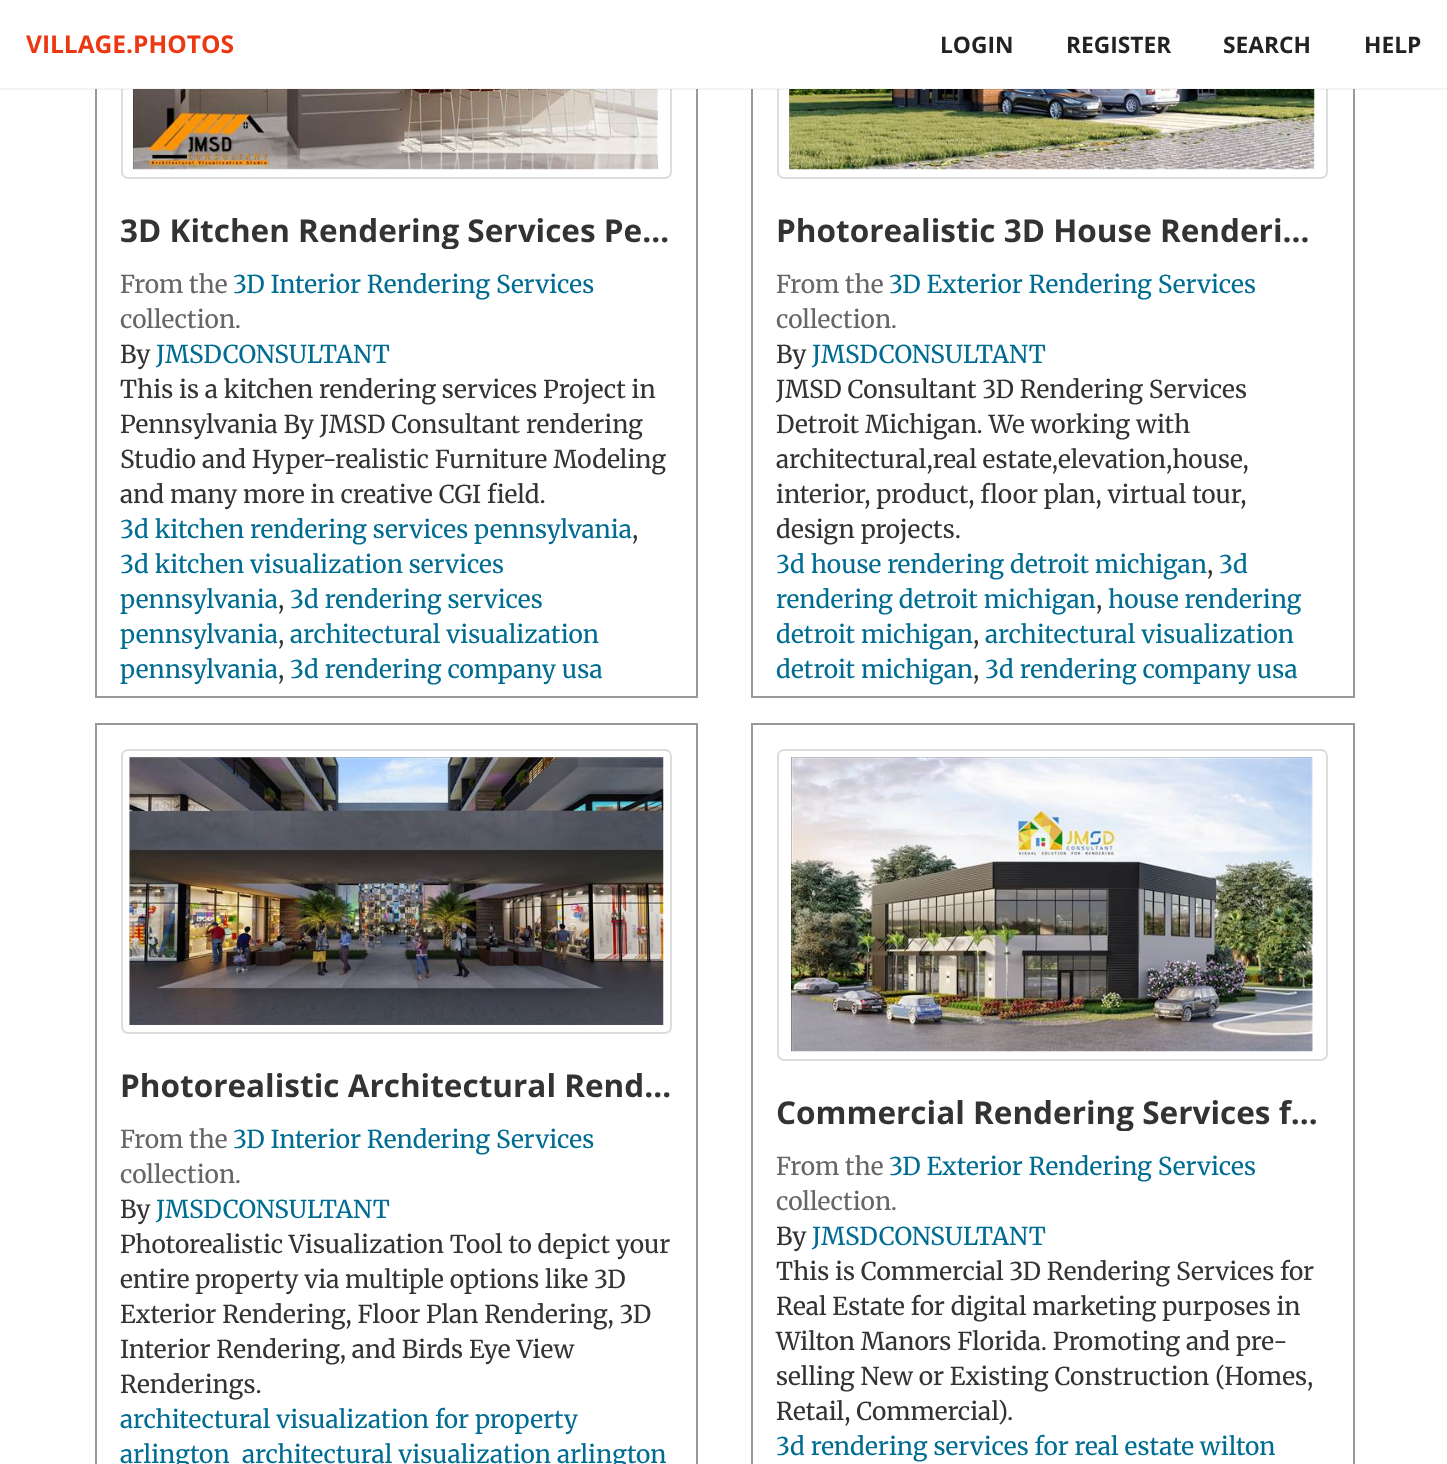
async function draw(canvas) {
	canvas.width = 1447;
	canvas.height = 1464;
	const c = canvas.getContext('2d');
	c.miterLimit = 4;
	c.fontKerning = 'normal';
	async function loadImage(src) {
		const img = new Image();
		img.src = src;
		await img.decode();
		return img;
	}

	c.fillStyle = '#fff';
	c.fillRect(0, 0, 1447, 1464);
	c.strokeStyle = '#999';
	c.lineWidth = 2;
	c.strokeRect(96, -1, 601, 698);
	c.beginPath();
	c.roundRect(122, -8, 549, 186, 6);
	c.strokeStyle = '#ddd';
	c.stroke();
	c.strokeStyle = '#999';
	c.strokeRect(752, -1, 602, 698);
	c.beginPath();
	c.roundRect(778, -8, 549, 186, 6);
	c.strokeStyle = '#ddd';
	c.stroke();
	c.fillRect(95, 0, 1260, 89);
	c.drawImage(await loadImage('img1.png'), 133, 89, 525, 81);
	c.drawImage(await loadImage('img2.png'), 789, 89, 526, 81);
	c.fillStyle = '#2222220d';
	c.fillRect(0, 88, 1447, 2);
	c.font = 'bold 24.5px Open Sans';
	c.fillStyle = '#eb3812';
	c.fillText('VILLAGE.PHOTOS', 26, 53);
	c.font = 'bold 22.75px Open Sans';
	c.fillStyle = '#222';
	for (const [text, x, y] of [
		['LOGIN', 940, 53],
		['REGISTER', 1066, 53],
		['SEARCH', 1223, 53],
		['HELP', 1364, 53],
	]) {
		c.fillText(text, x, y);
	}
	c.save();
	c.beginPath();
	c.rect(121, 214, 551, 35);
	c.clip();
	c.font = 'bold 31.5px Open Sans';
	c.fillStyle = '#333';
	c.fillText('3D Kitchen Rendering Services Pe…', 120, 242);
	c.restore();
	c.font = '24.5px Merriweather';
	c.fillStyle = '#666';
	c.fillText('From the', 120, 293);
	c.fillStyle = '#006c92';
	c.fillText('3D Interior Rendering Services', 233, 293);
	c.fillStyle = '#666';
	c.fillText('collection.', 120, 328);
	c.fillStyle = '#333';
	c.fillText('By', 120, 363);
	c.fillStyle = '#006c92';
	c.fillText('JMSDCONSULTANT', 156, 363);
	c.fillStyle = '#333';
	for (const [text, x, y] of [
		['This is a kitchen rendering services Project in', 120, 398],
		['Pennsylvania By JMSD Consultant rendering', 120, 433],
		['Studio and Hyper-realistic Furniture Modeling', 120, 468],
		['and many more in creative CGI field.', 120, 503],
	]) {
		c.fillText(text, x, y);
	}
	c.fillStyle = '#006c92';
	c.fillText('3d kitchen rendering services pennsylvania', 120, 538);
	c.fillStyle = '#333';
	c.fillText(',', 632, 538);
	c.fillStyle = '#006c92';
	c.fillText('3d kitchen visualization services', 120, 573);
	c.fillText('pennsylvania', 120, 608);
	c.fillStyle = '#333';
	c.fillText(',', 278, 608);
	c.fillStyle = '#006c92';
	c.fillText('3d rendering services', 290, 608);
	c.fillText('pennsylvania', 120, 643);
	c.fillStyle = '#333';
	c.fillText(',', 278, 643);
	c.fillStyle = '#006c92';
	c.fillText('architectural visualization', 290, 643);
	c.fillText('pennsylvania', 120, 678);
	c.fillStyle = '#333';
	c.fillText(',', 278, 678);
	c.fillStyle = '#006c92';
	c.fillText('3d rendering company usa', 290, 678);
	c.font = 'bold 31.5px Open Sans';
	c.fillStyle = '#333';
	c.fillText('Photorealistic 3D House Renderi…', 776, 242);
	c.font = '24.5px Merriweather';
	c.fillStyle = '#666';
	c.fillText('From the', 776, 293);
	c.fillStyle = '#006c92';
	c.fillText('3D Exterior Rendering Services', 889, 293);
	c.fillStyle = '#666';
	c.fillText('collection.', 776, 328);
	c.fillStyle = '#333';
	c.fillText('By', 776, 363);
	c.fillStyle = '#006c92';
	c.fillText('JMSDCONSULTANT', 812, 363);
	c.fillStyle = '#333';
	for (const [text, x, y] of [
		['JMSD Consultant 3D Rendering Services', 776, 398],
		['Detroit Michigan. We working with', 776, 433],
		['architectural,real estate,elevation,house,', 776, 468],
		['interior, product, floor plan, virtual tour,', 776, 503],
		['design projects.', 776, 538],
	]) {
		c.fillText(text, x, y);
	}
	c.fillStyle = '#006c92';
	c.fillText('3d house rendering detroit michigan', 776, 573);
	c.fillStyle = '#333';
	c.fillText(',', 1207, 573);
	c.fillStyle = '#006c92';
	c.fillText('3d', 1219, 573);
	c.fillText('rendering detroit michigan', 776, 608);
	c.fillStyle = '#333';
	c.fillText(',', 1096, 608);
	c.fillStyle = '#006c92';
	c.fillText('house rendering', 1108, 608);
	c.fillText('detroit michigan', 776, 643);
	c.fillStyle = '#333';
	c.fillText(',', 973, 643);
	c.fillStyle = '#006c92';
	c.fillText('architectural visualization', 985, 643);
	c.fillText('detroit michigan', 776, 678);
	c.fillStyle = '#333';
	c.fillText(',', 973, 678);
	c.fillStyle = '#006c92';
	c.fillText('3d rendering company usa', 985, 678);
	c.strokeStyle = '#999';
	c.strokeRect(96, 724, 601, 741);
	c.beginPath();
	c.roundRect(122, 750, 549, 283, 6);
	c.strokeStyle = '#ddd';
	c.stroke();
	c.drawImage(await loadImage('img3.png'), 129, 757, 535, 268);
	c.font = 'bold 31.5px Open Sans';
	c.fillStyle = '#333';
	c.fillText('Photorealistic Architectural Rend…', 120, 1097);
	c.font = '24.5px Merriweather';
	c.fillStyle = '#666';
	c.fillText('From the', 120, 1148);
	c.fillStyle = '#006c92';
	c.fillText('3D Interior Rendering Services', 233, 1148);
	c.fillStyle = '#666';
	c.fillText('collection.', 120, 1183);
	c.fillStyle = '#333';
	c.fillText('By', 120, 1218);
	c.fillStyle = '#006c92';
	c.fillText('JMSDCONSULTANT', 156, 1218);
	c.fillStyle = '#333';
	for (const [text, x, y] of [
		['Photorealistic Visualization Tool to depict your', 120, 1253],
		['entire property via multiple options like 3D', 120, 1288],
		['Exterior Rendering, Floor Plan Rendering, 3D', 120, 1323],
		['Interior Rendering, and Birds Eye View', 120, 1358],
		['Renderings.', 120, 1393],
	]) {
		c.fillText(text, x, y);
	}
	c.fillStyle = '#006c92';
	for (const [text, x, y] of [
		['architectural visualization for property', 120, 1428],
		['arlington', 120, 1463],
		['architectural visualization arlington', 242, 1463],
	]) {
		c.fillText(text, x, y);
	}
	c.strokeStyle = '#999';
	c.strokeRect(752, 724, 602, 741);
	c.beginPath();
	c.roundRect(778, 750, 549, 310, 6);
	c.strokeStyle = '#ddd';
	c.stroke();
	c.drawImage(await loadImage('img4.png'), 791, 757, 522, 295);
	c.save();
	c.beginPath();
	c.rect(777, 1096, 551, 35);
	c.clip();
	c.font = 'bold 31.5px Open Sans';
	c.fillStyle = '#333';
	c.fillText('Commercial Rendering Services f…', 776, 1124);
	c.restore();
	c.fillStyle = '#666';
	c.fillText('From the', 776, 1175);
	c.fillStyle = '#006c92';
	c.fillText('3D Exterior Rendering Services', 889, 1175);
	c.fillStyle = '#666';
	c.fillText('collection.', 776, 1210);
	c.fillStyle = '#333';
	c.fillText('By', 776, 1245);
	c.fillStyle = '#006c92';
	c.fillText('JMSDCONSULTANT', 812, 1245);
	c.fillStyle = '#333';
	for (const [text, x, y] of [
		['This is Commercial 3D Rendering Services for', 776, 1280],
		['Real Estate for digital marketing purposes in', 776, 1315],
		['Wilton Manors Florida. Promoting and pre-', 776, 1350],
		['selling New or Existing Construction (Homes,', 776, 1385],
		['Retail, Commercial).', 776, 1420],
	]) {
		c.fillText(text, x, y);
	}
	c.fillStyle = '#006c92';
	c.fillText('3d rendering services for real estate wilton', 776, 1455);
}

draw(document.querySelector('canvas'));
